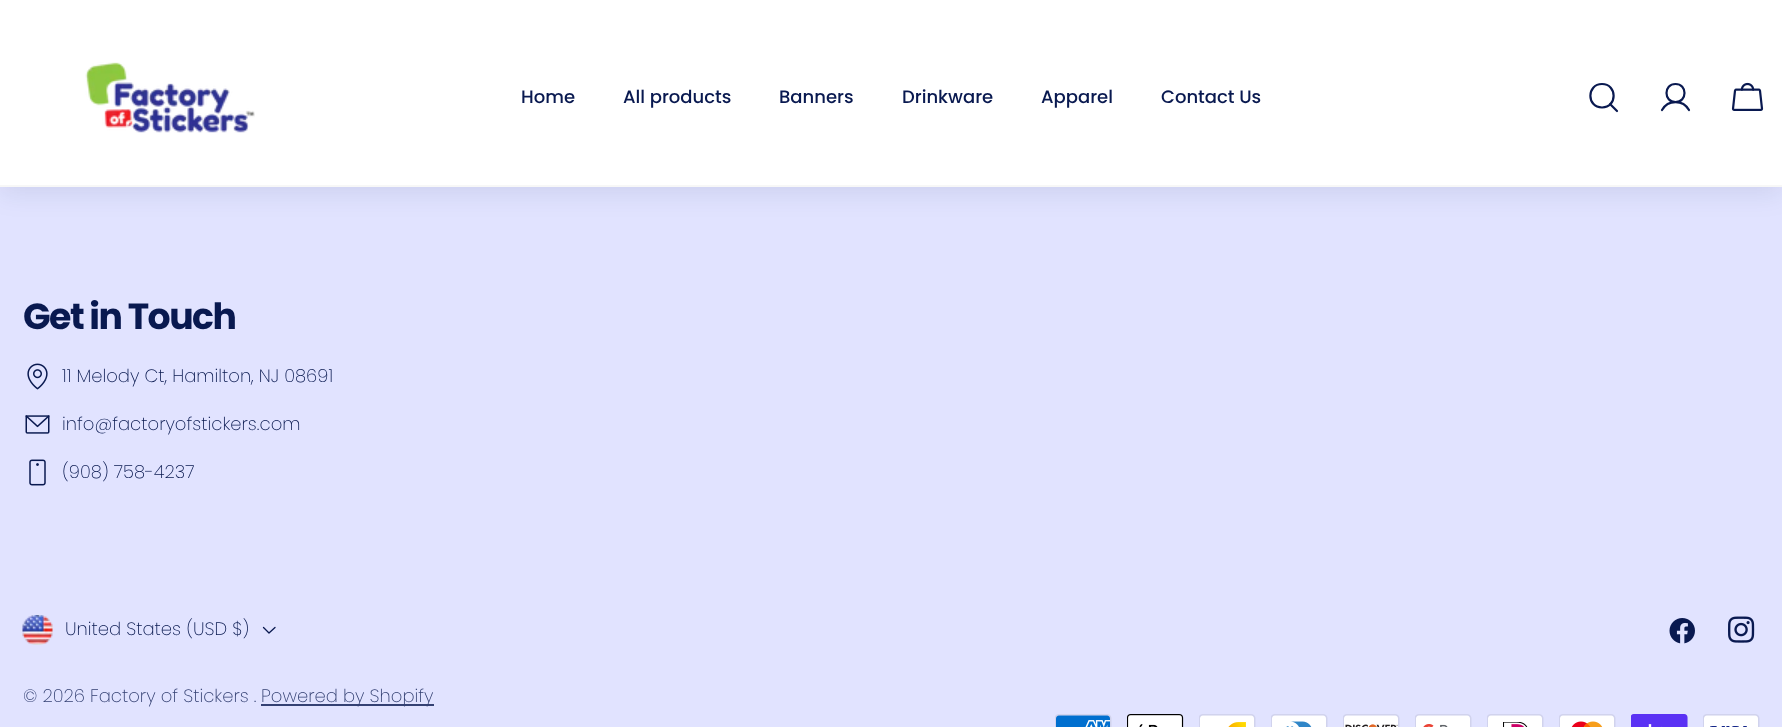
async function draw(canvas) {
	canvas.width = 1782;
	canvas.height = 727;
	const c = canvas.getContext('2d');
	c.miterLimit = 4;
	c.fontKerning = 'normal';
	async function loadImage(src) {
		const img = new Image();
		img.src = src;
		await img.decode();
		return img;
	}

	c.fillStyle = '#e1e3ff';
	c.fillRect(0, 0, 1782, 727);
	c.fillStyle = '#0919501a';
	c.filter = 'blur(13.5px)';
	c.beginPath();
	c.rect(0, 6, 1782, 186);
	c.fill();
	c.filter = 'none';
	c.fillStyle = '#f7f7f7';
	c.fillRect(0, 185, 1782, 2);
	c.fillStyle = '#fff';
	c.fillRect(0, 0, 1782, 185);
	c.drawImage(await loadImage('img1.png'), 85, 62, 170, 71);
	c.font = '500 18px Poppins';
	c.fillStyle = '#091950';
	for (const [text, x, y] of [
		['Home', 521, 103],
		['All products', 623, 103],
		['Banners', 779, 103],
		['Drinkware', 902, 103],
		['Apparel', 1041, 103],
		['Contact Us', 1161, 103],
	]) {
		c.fillText(text, x, y);
	}
	c.beginPath();
	c.moveTo(1602, 107.5);
	c.bezierCurveTo(1617.5, 107.5, 1617.5, 84, 1602, 84);
	c.bezierCurveTo(1586.5, 84, 1586.5, 107.5, 1602, 107.5);
	c.closePath();
	c.moveTo(1610, 104);
	c.lineTo(1617, 111);
	c.strokeStyle = '#091950';
	c.lineWidth = 2.2;
	c.lineCap = 'round';
	c.lineJoin = 'round';
	c.stroke();
	c.beginPath();
	c.moveTo(1675.5, 102);
	c.bezierCurveTo(1687.5, 102, 1687.5, 84, 1675.5, 84);
	c.bezierCurveTo(1663.5, 84, 1663.5, 102, 1675.5, 102);
	c.closePath();
	c.moveTo(1662, 110);
	c.bezierCurveTo(1668, 99.5, 1683, 99.5, 1689, 110);
	c.stroke();
	c.drawImage(await loadImage('img2.png'), 1731, 82, 33, 29);
	c.letterSpacing = '-1.5px';
	c.font = 'bold 36.25px Poppins';
	c.fillText('Get in Touch', 23, 329);
	c.drawImage(await loadImage('img3.png'), 27, 363, 21, 27);
	c.letterSpacing = '0px';
	c.font = '300 18px Poppins';
	c.fillText('11 Melody Ct, Hamilton, NJ 08691', 62, 382);
	c.drawImage(await loadImage('img4.png'), 25, 415, 25, 19);
	c.fillText('info@factoryofstickers.com', 62, 430);
	c.drawImage(await loadImage('img5.png'), 29, 459, 17, 27);
	c.fillText('(908) 758-4237', 62, 478);
	c.drawImage(await loadImage('img6.png'), 22, 615, 31, 30);
	c.fillText('United States (USD $)', 65, 635);
	c.beginPath();
	c.moveTo(275, 627.5);
	c.lineTo(269, 633);
	c.lineTo(263.5, 627.5);
	c.lineWidth = 1.3;
	c.stroke();
	c.drawImage(await loadImage('img7.png'), 1669, 618, 26, 26);
	c.drawImage(await loadImage('img8.png'), 1728, 616, 27, 27);
	c.fillStyle = '#344173';
	c.fillText('© 2026 Factory of Stickers .', 23, 702);
	c.fillRect(261, 704, 173, 2);
	c.fillText('Powered by Shopify', 261, 702);
	c.drawImage(await loadImage('img9.png'), 1055, 714, 57, 13);
	c.drawImage(await loadImage('img10.png'), 1127, 714, 57, 13);
	c.drawImage(await loadImage('img11.png'), 1199, 714, 57, 13);
	c.drawImage(await loadImage('img12.png'), 1271, 714, 57, 13);
	c.drawImage(await loadImage('img13.png'), 1343, 714, 57, 13);
	c.drawImage(await loadImage('img14.png'), 1415, 714, 57, 13);
	c.drawImage(await loadImage('img15.png'), 1487, 714, 57, 13);
	c.drawImage(await loadImage('img16.png'), 1559, 714, 57, 13);
	c.drawImage(await loadImage('img17.png'), 1631, 714, 57, 13);
	c.drawImage(await loadImage('img18.png'), 1703, 714, 57, 13);
}

draw(document.querySelector('canvas'));
